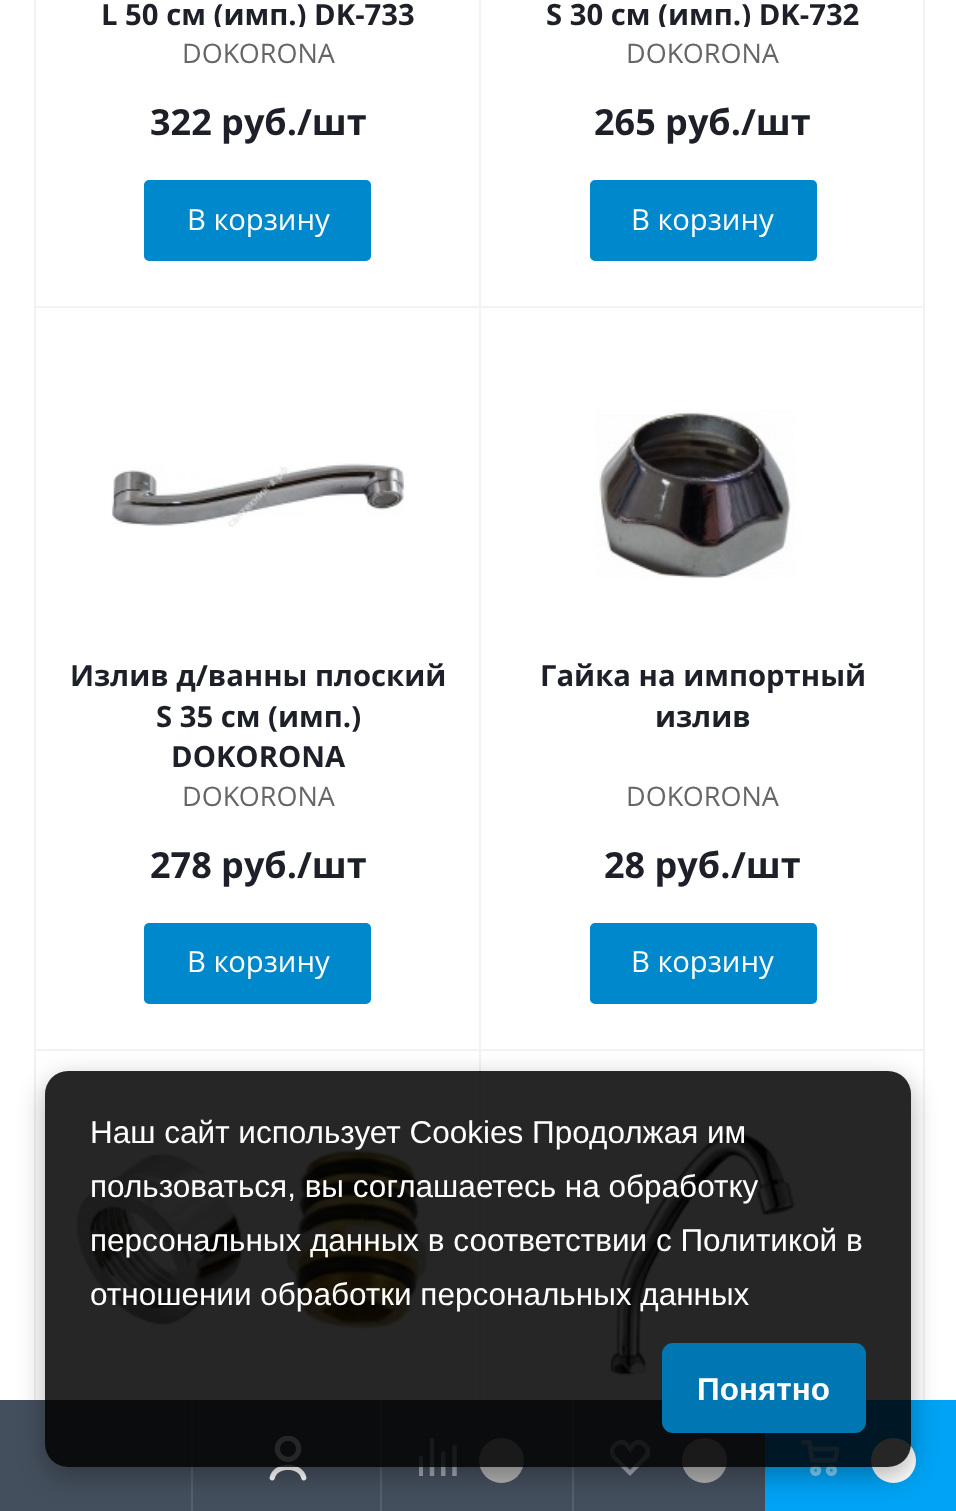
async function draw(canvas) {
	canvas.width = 956;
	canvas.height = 1511;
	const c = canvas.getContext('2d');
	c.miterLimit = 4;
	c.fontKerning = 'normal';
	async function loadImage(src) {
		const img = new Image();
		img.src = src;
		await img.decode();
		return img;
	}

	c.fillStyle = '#fff';
	c.fillRect(0, 0, 956, 1511);
	c.strokeStyle = '#f2f2f2';
	c.lineWidth = 2;
	c.strokeRect(35, -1, 446, 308);
	c.save();
	c.beginPath();
	c.rect(68, 0, 382, 27);
	c.clip();
	c.font = 'bold 29.25px Open Sans';
	c.fillStyle = '#1d2029';
	c.fillText('L 50 см (имп.) DK-733', 101, 25);
	c.restore();
	c.font = '27px Open Sans';
	c.fillStyle = '#666';
	c.fillText('DOKORONA', 182, 63);
	c.font = 'bold 36px Open Sans';
	c.fillStyle = '#1d2029';
	c.fillText('322 руб.', 150, 135);
	c.fillText('/шт', 297, 135);
	c.fillStyle = '#08c';
	c.beginPath();
	c.roundRect(145, 181, 225, 79, 4);
	c.fill();
	c.strokeStyle = '#08c';
	c.stroke();
	c.font = '29.25px Open Sans';
	c.fillStyle = '#fff';
	c.fillText('В корзину', 187, 230);
	c.fillRect(481, 0, 1, 306);
	c.strokeStyle = '#f2f2f2';
	c.strokeRect(480, -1, 444, 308);
	c.save();
	c.beginPath();
	c.rect(513, 0, 380, 27);
	c.clip();
	c.font = 'bold 29.25px Open Sans';
	c.fillStyle = '#1d2029';
	c.fillText('S 30 см (имп.) DK-732', 546, 25);
	c.restore();
	c.font = '27px Open Sans';
	c.fillStyle = '#666';
	c.fillText('DOKORONA', 626, 63);
	c.font = 'bold 36px Open Sans';
	c.fillStyle = '#1d2029';
	c.fillText('265 руб.', 594, 135);
	c.fillText('/шт', 741, 135);
	c.fillStyle = '#08c';
	c.beginPath();
	c.roundRect(591, 181, 225, 79, 4);
	c.fill();
	c.strokeStyle = '#08c';
	c.stroke();
	c.font = '29.25px Open Sans';
	c.fillStyle = '#fff';
	c.fillText('В корзину', 631, 230);
	c.strokeStyle = '#f2f2f2';
	c.strokeRect(35, 307, 446, 743);
	c.drawImage(await loadImage('img1.png'), 111, 463, 295, 64);
	c.font = 'bold 29.25px Open Sans';
	c.fillStyle = '#1d2029';
	for (const [text, x, y] of [
		['Излив д/ванны плоский', 70, 686],
		['S 35 см (имп.)', 156, 727],
		['DOKORONA', 171, 767],
	]) {
		c.fillText(text, x, y);
	}
	c.font = '27px Open Sans';
	c.fillStyle = '#666';
	c.fillText('DOKORONA', 182, 806);
	c.font = 'bold 36px Open Sans';
	c.fillStyle = '#1d2029';
	c.fillText('278 руб.', 150, 878);
	c.fillText('/шт', 297, 878);
	c.fillStyle = '#08c';
	c.beginPath();
	c.roundRect(145, 924, 225, 79, 4);
	c.fill();
	c.strokeStyle = '#08c';
	c.stroke();
	c.font = '29.25px Open Sans';
	c.fillStyle = '#fff';
	c.fillText('В корзину', 187, 972);
	c.fillRect(481, 308, 1, 741);
	c.strokeStyle = '#f2f2f2';
	c.strokeRect(480, 307, 444, 743);
	c.drawImage(await loadImage('img2.png'), 595, 410, 200, 169);
	c.font = 'bold 29.25px Open Sans';
	c.fillStyle = '#1d2029';
	c.fillText('Гайка на импортный', 540, 686);
	c.fillText('излив', 655, 727);
	c.font = '27px Open Sans';
	c.fillStyle = '#666';
	c.fillText('DOKORONA', 626, 806);
	c.font = 'bold 36px Open Sans';
	c.fillStyle = '#1d2029';
	c.fillText('28 руб.', 604, 878);
	c.fillText('/шт', 731, 878);
	c.fillStyle = '#08c';
	c.beginPath();
	c.roundRect(591, 924, 225, 79, 4);
	c.fill();
	c.strokeStyle = '#08c';
	c.stroke();
	c.font = '29.25px Open Sans';
	c.fillStyle = '#fff';
	c.fillText('В корзину', 631, 972);
	c.strokeStyle = '#f2f2f2';
	c.strokeRect(35, 1050, 446, 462);
	c.drawImage(await loadImage('img3.png'), 75, 1145, 358, 186);
	c.fillRect(481, 1051, 1, 349);
	c.strokeRect(480, 1050, 444, 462);
	c.drawImage(await loadImage('img4.png'), 607, 1131, 190, 247);
	c.fillStyle = '#444f5d';
	c.fillRect(0, 1400, 765, 111);
	c.fillStyle = '#57616d';
	c.fillRect(191, 1400, 2, 111);
	c.drawImage(await loadImage('img5.png'), 269, 1436, 38, 45);
	c.fillRect(380, 1400, 2, 111);
	c.drawImage(await loadImage('img6.png'), 419, 1438, 38, 38);
	c.fillStyle = '#b0b0b0';
	c.beginPath();
	c.arc(501.5, 1460.5, 22.5, 0, 2 * Math.PI);
	c.fill();
	c.fillStyle = '#57616d';
	c.fillRect(572, 1400, 2, 111);
	c.save();
	c.beginPath();
	c.rect(610, 1440, 40, 36);
	c.clip();
	c.fillStyle = '#a2a7ae';
	c.beginPath();
	c.moveTo(646, 1460);
	c.lineTo(630, 1476);
	c.lineTo(613, 1459);
	c.bezierCurveTo(602, 1447, 623, 1431, 630, 1446);
	c.bezierCurveTo(638, 1430, 660, 1449, 646, 1460);
	c.closePath();
	c.moveTo(643, 1456);
	c.lineTo(630, 1470);
	c.lineTo(616, 1456);
	c.bezierCurveTo(610, 1449, 621, 1440, 626, 1447);
	c.lineTo(630, 1453);
	c.lineTo(635, 1446);
	c.bezierCurveTo(641, 1441, 650, 1451, 643, 1456);
	c.closePath();
	c.fill('evenodd');
	c.restore();
	c.fillStyle = '#b0b0b0';
	c.beginPath();
	c.arc(704.5, 1460.5, 22.5, 0, 2 * Math.PI);
	c.fill();
	c.fillStyle = '#00a3f5';
	c.fillRect(765, 1400, 191, 111);
	c.drawImage(await loadImage('img7.png'), 801, 1440, 38, 36);
	c.fillStyle = '#fff';
	c.beginPath();
	c.arc(893.5, 1460.5, 22.5, 0, 2 * Math.PI);
	c.fill();
	c.save();
	c.beginPath();
	c.moveTo(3, 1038);
	c.lineTo(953, 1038);
	c.lineTo(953, 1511);
	c.lineTo(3, 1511);
	c.closePath();
	c.moveTo(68, 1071);
	c.lineTo(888, 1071);
	c.bezierCurveTo(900.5, 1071, 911, 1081.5, 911, 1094);
	c.lineTo(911, 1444);
	c.bezierCurveTo(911, 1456.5, 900.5, 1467, 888, 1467);
	c.lineTo(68, 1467);
	c.bezierCurveTo(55.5, 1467, 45, 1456.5, 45, 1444);
	c.lineTo(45, 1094);
	c.bezierCurveTo(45, 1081.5, 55.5, 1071, 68, 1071);
	c.closePath();
	c.clip('evenodd');
	c.fillStyle = '#0000004d';
	c.filter = 'blur(13.5px)';
	c.beginPath();
	c.roundRect(45, 1080, 866, 396, 23);
	c.fill();
	c.filter = 'none';
	c.restore();
	c.fillStyle = '#000000d9';
	c.beginPath();
	c.roundRect(45, 1071, 866, 396, 23);
	c.fill();
	c.font = '31.5px Liberation Sans';
	c.fillStyle = '#fff';
	for (const [text, x, y] of [
		['Наш сайт использует Cookies Продолжая им', 90, 1143],
		['пользоваться, вы соглашаетесь на обработку', 90, 1197],
		['персональных данных в соответствии с Политикой в', 90, 1251],
		['отношении обработки персональных данных', 90, 1305],
	]) {
		c.fillText(text, x, y);
	}
	c.fillStyle = '#0077b3';
	c.beginPath();
	c.roundRect(662, 1343, 204, 90, 11);
	c.fill();
	c.font = 'bold 31.5px Liberation Sans';
	c.fillStyle = '#fff';
	c.fillText('Понятно', 697, 1400);
}

draw(document.querySelector('canvas'));
